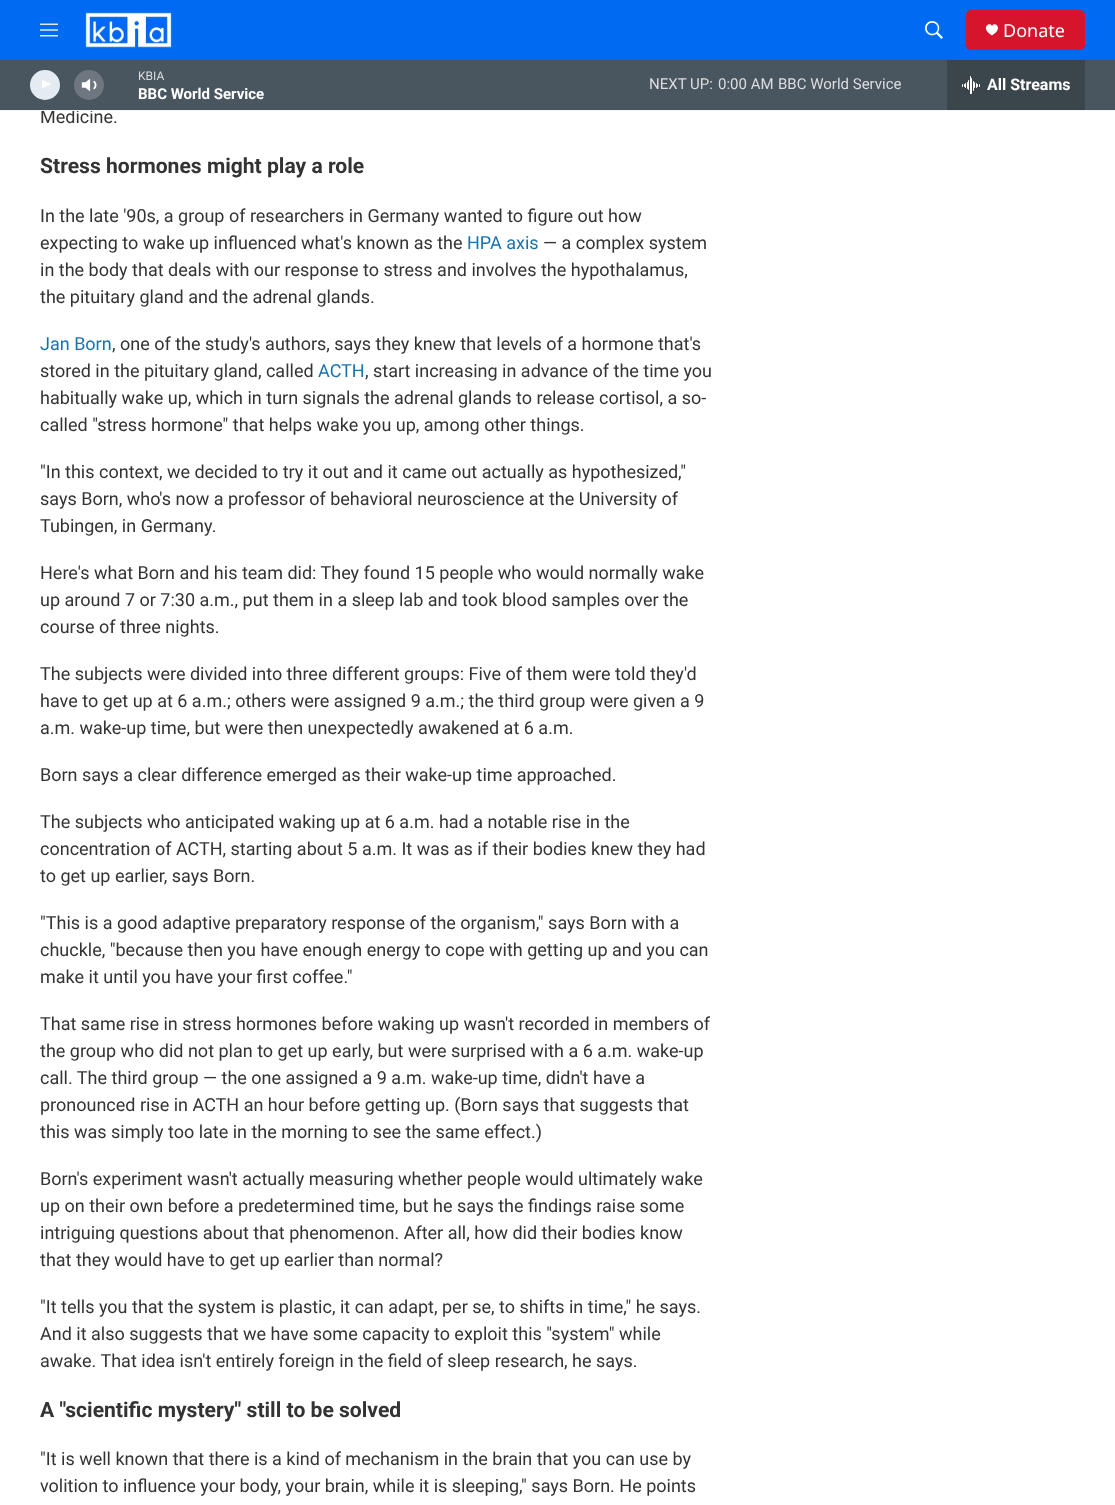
async function draw(canvas) {
	canvas.width = 1115;
	canvas.height = 1505;
	const c = canvas.getContext('2d');
	c.miterLimit = 4;
	c.fontKerning = 'normal';
	async function loadImage(src) {
		const img = new Image();
		img.src = src;
		await img.decode();
		return img;
	}

	c.fillStyle = '#fff';
	c.fillRect(0, 0, 1115, 1505);
	c.fillStyle = '#006af3';
	c.fillRect(0, 0, 1115, 60);
	c.font = '18px Roboto';
	c.fillStyle = '#333';
	c.fillText('Medicine.', 40, 123);
	c.fillStyle = '#f5f5f5';
	c.fillRect(0, 110, 1115, 1);
	c.drawImage(await loadImage('img1.png'), 40, 23, 18, 14);
	c.drawImage(await loadImage('img2.png'), 85, 12, 87, 36);
	c.drawImage(await loadImage('img3.png'), 925, 21, 18, 18);
	c.fillStyle = '#d6152c';
	c.beginPath();
	c.roundRect(966, 10, 119, 40, 5);
	c.fill();
	c.fillStyle = '#fff';
	c.beginPath();
	c.moveTo(992, 26);
	c.bezierCurveTo(990, 21, 979.5, 28, 992, 35.5);
	c.bezierCurveTo(1004.5, 28, 994, 21, 992, 26);
	c.closePath();
	c.fill();
	c.font = '18px Noto Sans';
	c.fillText('Donate', 1003, 37);
	c.fillStyle = '#4a565f';
	c.fillRect(0, 60, 1115, 50);
	c.fillStyle = '#e4ecf2';
	c.beginPath();
	c.arc(45, 85, 15, 0, 2 * Math.PI);
	c.fill();
	c.save();
	c.beginPath();
	c.rect(42, 78, 12, 15);
	c.clip();
	c.fillStyle = '#fff';
	c.beginPath();
	c.moveTo(41.5, 79.5);
	c.lineTo(51, 84);
	c.lineTo(41.5, 89);
	c.closePath();
	c.fill();
	c.restore();
	c.drawImage(await loadImage('img4.png'), 81, 78, 16, 14);
	c.fillStyle = '#ffffff33';
	c.beginPath();
	c.arc(89, 85, 15, 0, 2 * Math.PI);
	c.fill();
	c.font = '12px Roboto';
	c.fillStyle = '#dbdddf';
	c.fillText('KBIA', 138, 80);
	c.font = 'bold 15px Roboto';
	c.fillStyle = '#fff';
	c.fillText('BBC World Service', 138, 99);
	c.font = '15px Roboto';
	c.fillStyle = '#dbdddf';
	for (const [text, x, y] of [
		['NEXT UP:', 649, 89],
		['0:00 AM', 718, 89],
		['BBC World Service', 778, 89],
	]) {
		c.fillText(text, x, y);
	}
	c.fillStyle = '#3b454c';
	c.fillRect(947, 60, 138, 50);
	c.drawImage(await loadImage('img5.png'), 962, 76, 18, 18);
	c.font = 'bold 16px Roboto';
	c.fillStyle = '#fff';
	c.fillText('All Streams', 987, 90);
	c.font = 'bold 21.1px Roboto';
	c.fillStyle = '#333';
	c.fillText('Stress hormones might play a role', 40, 173);
	c.font = '18px Roboto';
	c.fillText('In the late \'90s, a group of researchers in Germany wanted to figure out how', 40, 222);
	c.fillText('expecting to wake up influenced what\'s known as the', 40, 249);
	c.fillStyle = '#1772b0';
	c.fillText('HPA axis', 467, 249);
	c.fillStyle = '#333';
	for (const [text, x, y] of [
		['— a complex system', 543, 249],
		['in the body that deals with our response to stress and involves the hypothalamus,', 40, 276],
		['the pituitary gland and the adrenal glands.', 40, 303],
	]) {
		c.fillText(text, x, y);
	}
	c.fillStyle = '#1772b0';
	c.fillText('Jan Born', 40, 350);
	c.fillStyle = '#333';
	c.fillText(', one of the study\'s authors, says they knew that levels of a hormone that\'s', 112, 350);
	c.fillText('stored in the pituitary gland, called', 40, 377);
	c.fillStyle = '#1772b0';
	c.fillText('ACTH', 318, 377);
	c.fillStyle = '#333';
	for (const [text, x, y] of [
		[', start increasing in advance of the time you', 365, 377],
		['habitually wake up, which in turn signals the adrenal glands to release cortisol, a so-', 40, 404],
		['called "stress hormone" that helps wake you up, among other things.', 40, 431],
		['"In this context, we decided to try it out and it came out actually as hypothesized,"', 40, 478],
		['says Born, who\'s now a professor of behavioral neuroscience at the University of', 40, 505],
		['Tubingen, in Germany.', 40, 532],
		['Here\'s what Born and his team did: They found 15 people who would normally wake', 40, 579],
		['up around 7 or 7:30 a.m., put them in a sleep lab and took blood samples over the', 40, 606],
		['course of three nights.', 40, 633],
		['The subjects were divided into three different groups: Five of them were told they\'d', 40, 680],
		['have to get up at 6 a.m.; others were assigned 9 a.m.; the third group were given a 9', 40, 707],
		['a.m. wake-up time, but were then unexpectedly awakened at 6 a.m.', 40, 734],
		['Born says a clear difference emerged as their wake-up time approached.', 40, 781],
		['The subjects who anticipated waking up at 6 a.m. had a notable rise in the', 40, 828],
		['concentration of ACTH, starting about 5 a.m. It was as if their bodies knew they had', 40, 855],
		['to get up earlier, says Born.', 40, 882],
		['"This is a good adaptive preparatory response of the organism," says Born with a', 40, 929],
		['chuckle, "because then you have enough energy to cope with getting up and you can', 40, 956],
		['make it until you have your first coffee."', 40, 983],
		['That same rise in stress hormones before waking up wasn\'t recorded in members of', 40, 1030],
		['the group who did not plan to get up early, but were surprised with a 6 a.m. wake-up', 40, 1057],
		['call. The third group — the one assigned a 9 a.m. wake-up time, didn\'t have a', 40, 1084],
		['pronounced rise in ACTH an hour before getting up. (Born says that suggests that', 40, 1111],
		['this was simply too late in the morning to see the same effect.)', 40, 1138],
		['Born\'s experiment wasn\'t actually measuring whether people would ultimately wake', 40, 1185],
		['up on their own before a predetermined time, but he says the findings raise some', 40, 1212],
		['intriguing questions about that phenomenon. After all, how did their bodies know', 40, 1239],
		['that they would have to get up earlier than normal?', 40, 1266],
		['"It tells you that the system is plastic, it can adapt, per se, to shifts in time," he says.', 40, 1313],
		['And it also suggests that we have some capacity to exploit this "system" while', 40, 1340],
		['awake. That idea isn\'t entirely foreign in the field of sleep research, he says.', 40, 1367],
	]) {
		c.fillText(text, x, y);
	}
	c.font = 'bold 21.1px Roboto';
	c.fillText('A "scientific mystery" still to be solved', 40, 1417);
	c.font = '18px Roboto';
	c.fillText('"It is well known that there is a kind of mechanism in the brain that you can use by', 40, 1465);
	c.fillText('volition to influence your body, your brain, while it is sleeping," says Born. He points', 40, 1492);
}

draw(document.querySelector('canvas'));
